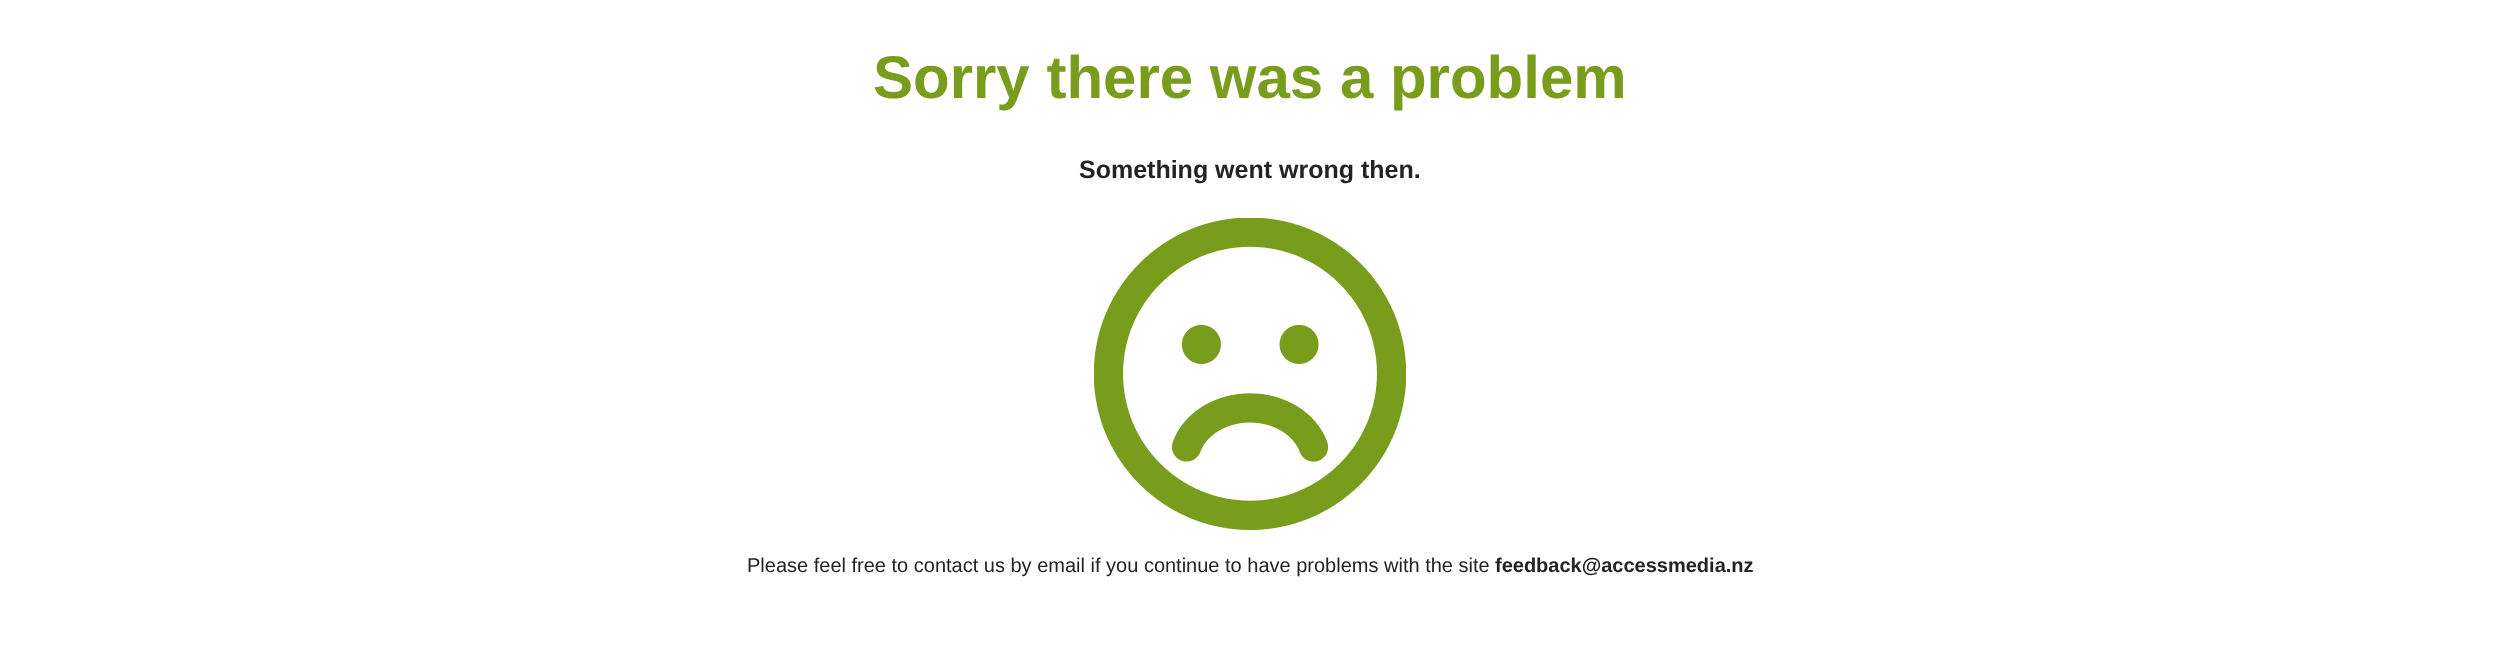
async function draw(canvas) {
	canvas.width = 2500;
	canvas.height = 645;
	const c = canvas.getContext('2d');
	c.miterLimit = 4;
	c.fontKerning = 'normal';
	async function loadImage(src) {
		const img = new Image();
		img.src = src;
		await img.decode();
		return img;
	}

	c.fillStyle = '#fff';
	c.fillRect(0, 0, 2500, 645);
	c.font = 'bold 60px Liberation Sans';
	c.fillStyle = '#789c1b';
	c.fillText('Sorry there was a problem', 873, 98);
	c.font = 'bold 25px Liberation Sans';
	c.fillStyle = '#232323';
	c.fillText('Something went wrong then.', 1079, 178);
	c.drawImage(await loadImage('img1.png'), 1094, 218, 312, 312);
	c.font = '20px Liberation Sans';
	c.fillText('Please feel free to contact us by email if you continue to have problems with the site', 747, 572);
	c.font = 'bold 20px Liberation Sans';
	c.fillText('feedback@accessmedia.nz', 1495, 572);
}

draw(document.querySelector('canvas'));
